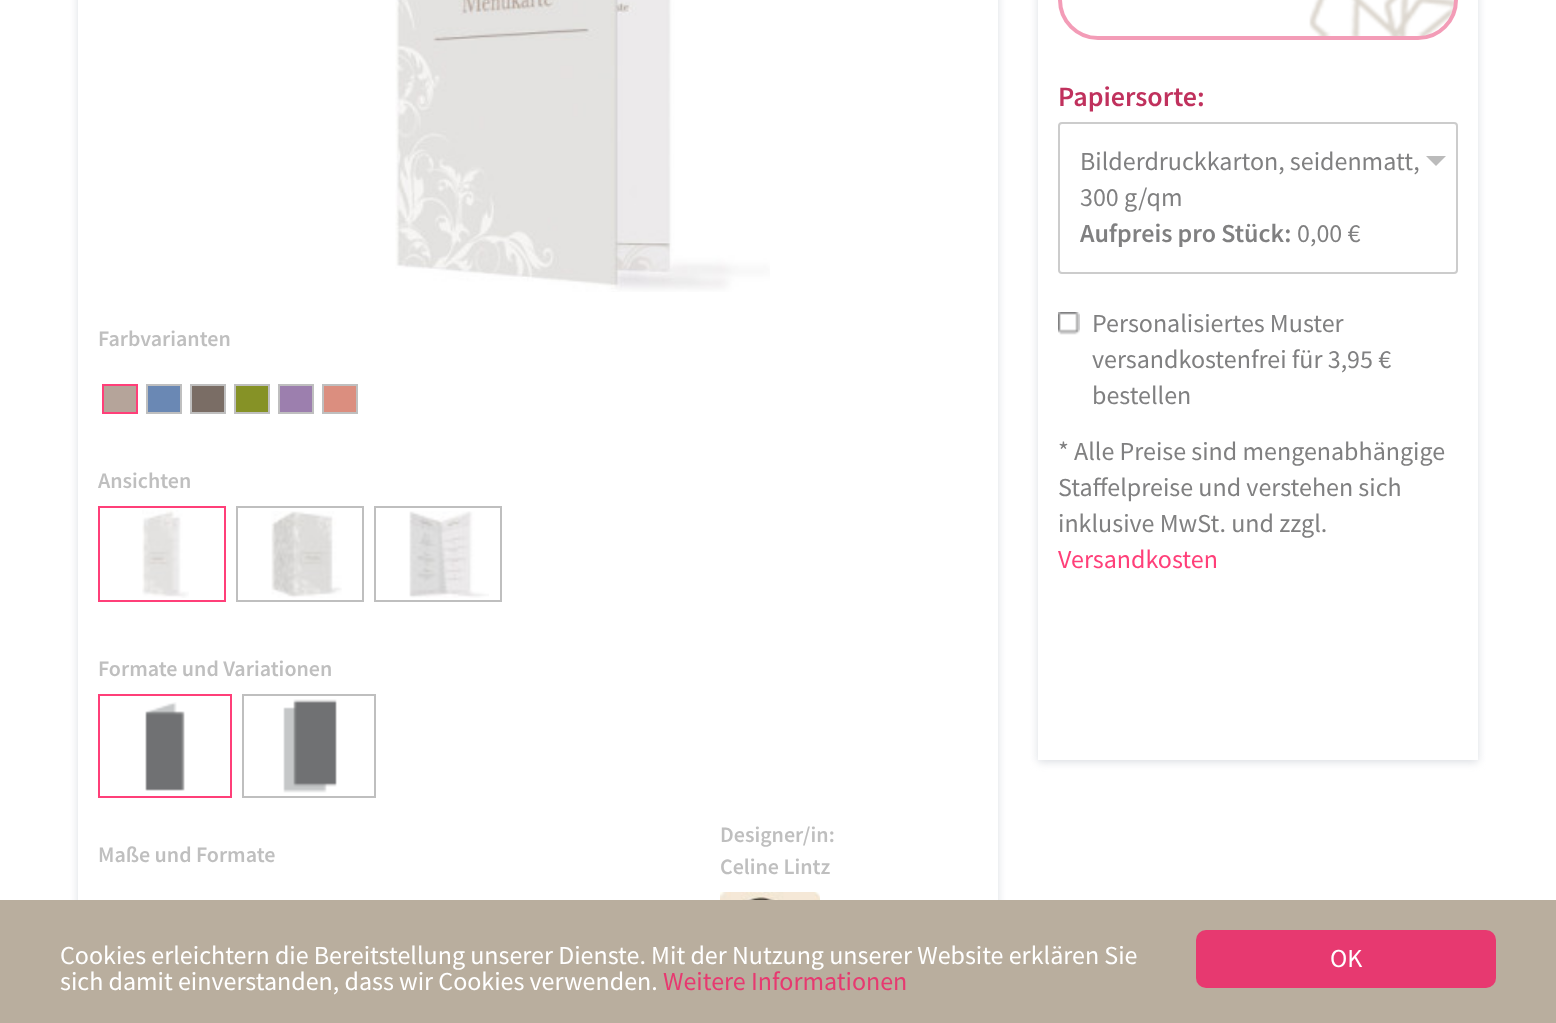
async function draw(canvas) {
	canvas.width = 1556;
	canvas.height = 1023;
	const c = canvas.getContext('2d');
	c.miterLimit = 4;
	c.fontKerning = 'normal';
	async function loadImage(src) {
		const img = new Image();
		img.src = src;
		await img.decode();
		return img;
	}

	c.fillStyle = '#fff';
	c.fillRect(0, 0, 1556, 1023);
	c.save();
	c.beginPath();
	c.moveTo(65, 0);
	c.lineTo(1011, 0);
	c.lineTo(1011, 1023);
	c.lineTo(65, 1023);
	c.closePath();
	c.moveTo(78, -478);
	c.lineTo(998, -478);
	c.lineTo(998, 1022);
	c.lineTo(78, 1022);
	c.closePath();
	c.clip('evenodd');
	c.fillStyle = '#dadde2';
	c.filter = 'blur(4px)';
	c.beginPath();
	c.rect(78, -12, 920, 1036);
	c.fill();
	c.filter = 'none';
	c.restore();
	c.drawImage(await loadImage('img1.png'), 395, 0, 375, 292);
	c.font = '600 22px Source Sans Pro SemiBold';
	c.fillStyle = '#bfbfbf';
	c.fillText('Farbvarianten', 98, 346);
	c.strokeStyle = '#ff3f79';
	c.lineWidth = 2;
	c.strokeRect(103, 385, 34, 28);
	c.fillStyle = '#b5a49a';
	c.fillRect(104, 386, 32, 26);
	c.strokeStyle = '#bfbfbf';
	c.strokeRect(147, 385, 34, 28);
	c.fillStyle = '#6a88b4';
	c.fillRect(148, 386, 32, 26);
	c.strokeRect(191, 385, 34, 28);
	c.fillStyle = '#7a6d65';
	c.fillRect(192, 386, 32, 26);
	c.strokeRect(235, 385, 34, 28);
	c.fillStyle = '#869226';
	c.fillRect(236, 386, 32, 26);
	c.strokeRect(279, 385, 34, 28);
	c.fillStyle = '#9c7fae';
	c.fillRect(280, 386, 32, 26);
	c.strokeRect(323, 385, 34, 28);
	c.fillStyle = '#db8e7f';
	c.fillRect(324, 386, 32, 26);
	c.fillStyle = '#bfbfbf';
	c.fillText('Ansichten', 98, 488);
	c.strokeStyle = '#ff3f79';
	c.strokeRect(99, 507, 126, 94);
	c.drawImage(await loadImage('img2.png'), 142, 510, 47, 88);
	c.strokeStyle = '#bfbfbf';
	c.strokeRect(237, 507, 126, 94);
	c.drawImage(await loadImage('img3.png'), 271, 511, 71, 87);
	c.strokeRect(375, 507, 126, 94);
	c.drawImage(await loadImage('img4.png'), 409, 511, 80, 87);
	c.fillText('Formate und Variationen', 98, 676);
	c.strokeStyle = '#ff3f79';
	c.strokeRect(99, 695, 132, 102);
	c.drawImage(await loadImage('img5.png'), 145, 702, 40, 89);
	c.strokeStyle = '#bfbfbf';
	c.strokeRect(243, 695, 132, 102);
	c.drawImage(await loadImage('img6.png'), 283, 699, 54, 94);
	for (const [text, x, y] of [
		['Maße und Formate', 98, 862],
		['Designer/in:', 720, 842],
		['Celine Lintz', 720, 874],
	]) {
		c.fillText(text, x, y);
	}
	c.drawImage(await loadImage('img7.png'), 720, 892, 100, 8);
	c.save();
	c.beginPath();
	c.moveTo(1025, 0);
	c.lineTo(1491, 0);
	c.lineTo(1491, 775);
	c.lineTo(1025, 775);
	c.closePath();
	c.moveTo(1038, -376);
	c.lineTo(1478, -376);
	c.lineTo(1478, 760);
	c.lineTo(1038, 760);
	c.closePath();
	c.clip('evenodd');
	c.fillStyle = '#dadde2';
	c.filter = 'blur(4px)';
	c.beginPath();
	c.rect(1038, -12, 440, 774);
	c.fill();
	c.filter = 'none';
	c.restore();
	c.drawImage(await loadImage('img8.png'), 1309, 0, 145, 36);
	c.beginPath();
	c.roundRect(1060, -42, 396, 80, 38);
	c.strokeStyle = '#f39cb7';
	c.lineWidth = 4;
	c.stroke();
	c.font = '600 28px Source Sans Pro SemiBold';
	c.fillStyle = '#c0315d';
	c.fillText('Papiersorte:', 1058, 106);
	c.beginPath();
	c.roundRect(1059, 123, 398, 150, 3);
	c.strokeStyle = '#ccc';
	c.lineWidth = 2;
	c.stroke();
	c.font = '26px Source Sans Pro';
	c.fillStyle = '#808081';
	c.fillText('Bilderdruckkarton, seidenmatt,', 1080, 170);
	c.fillText('300 g/qm', 1080, 206);
	c.font = '600 26px Source Sans Pro SemiBold';
	c.fillText('Aufpreis pro Stück:', 1080, 242);
	c.font = '26px Source Sans Pro';
	c.fillText('0,00 €', 1297, 242);
	c.fillStyle = '#bbb';
	c.beginPath();
	c.moveTo(1426, 156);
	c.lineTo(1446, 156);
	c.lineTo(1436, 166);
	c.closePath();
	c.fill();
	c.drawImage(await loadImage('img9.png'), 1058, 312, 22, 23);
	c.fillStyle = '#808081';
	for (const [text, x, y] of [
		['Personalisiertes Muster', 1092, 332],
		['versandkostenfrei für 3,95 €', 1092, 368],
		['bestellen', 1092, 404],
		['* Alle Preise sind mengenabhängige', 1058, 460],
		['Staffelpreise und verstehen sich', 1058, 496],
		['inklusive MwSt. und zzgl.', 1058, 532],
	]) {
		c.fillText(text, x, y);
	}
	c.fillStyle = '#ff3f79';
	c.fillText('Versandkosten', 1058, 568);
	c.fillStyle = '#b9ae9e';
	c.fillRect(0, 900, 1556, 123);
	c.fillStyle = '#fff';
	c.fillText('Cookies erleichtern die Bereitstellung unserer Dienste. Mit der Nutzung unserer Website erklären Sie', 60, 964);
	c.fillText('sich damit einverstanden, dass wir Cookies verwenden.', 60, 990);
	c.fillStyle = '#e73970';
	c.fillText('Weitere Informationen', 663, 990);
	c.beginPath();
	c.roundRect(1196, 930, 300, 58, 10);
	c.fill();
	c.fillStyle = '#fff';
	c.fillText('OK', 1330, 967);
}

draw(document.querySelector('canvas'));
